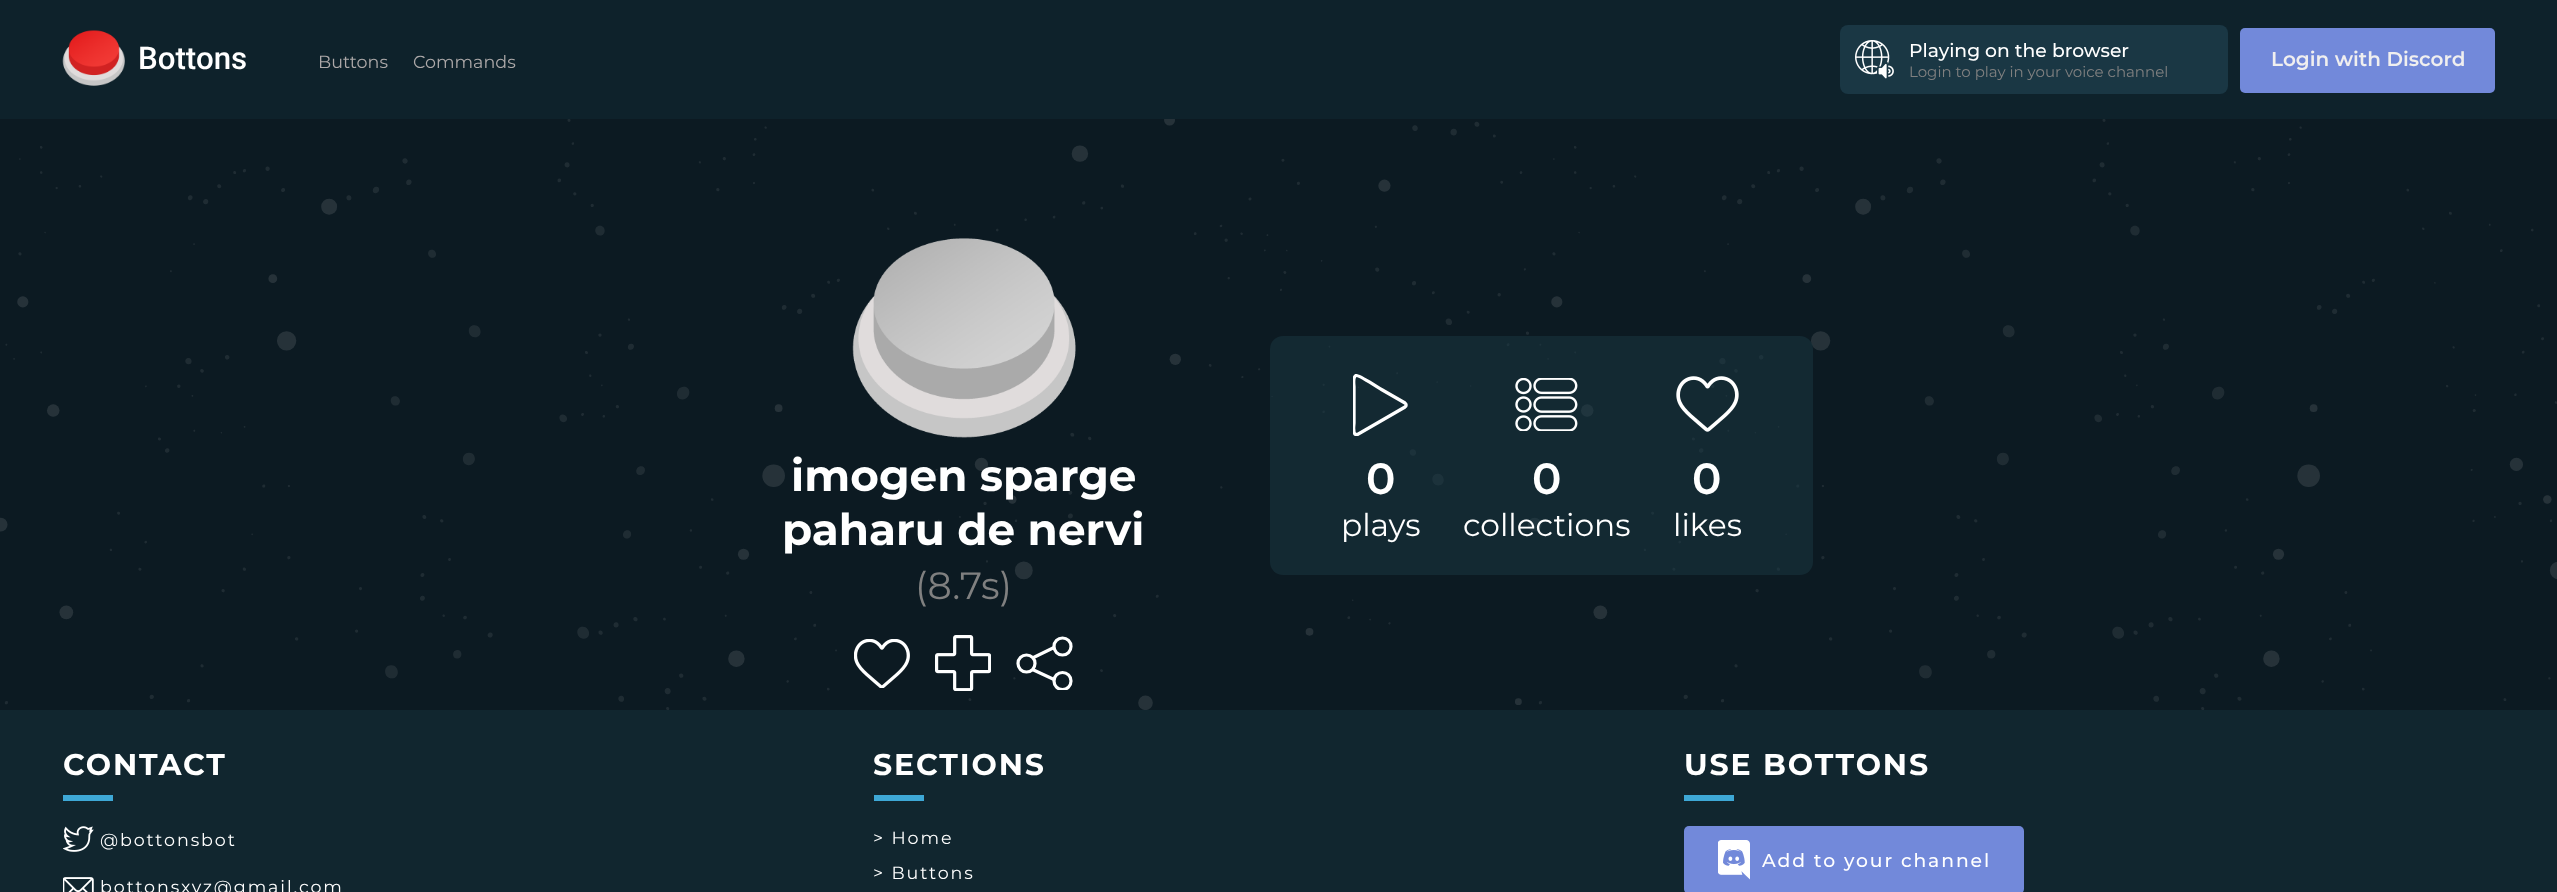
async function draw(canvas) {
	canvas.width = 2557;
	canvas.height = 892;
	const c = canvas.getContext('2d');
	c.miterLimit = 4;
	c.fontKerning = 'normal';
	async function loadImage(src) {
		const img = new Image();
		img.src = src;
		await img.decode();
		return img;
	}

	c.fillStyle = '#11262f';
	c.fillRect(0, 0, 2557, 892);
	c.fillStyle = '#0e222b';
	c.fillRect(0, 0, 2557, 119);
	c.drawImage(await loadImage('img1.png'), 62, 30, 63, 56);
	c.font = '500 31.25px Roboto';
	c.fillStyle = '#fff';
	c.fillText('Bottons', 138, 69);
	c.font = '17.5px Montserrat';
	c.fillStyle = '#ada9a9';
	c.fillText('Buttons', 318, 68);
	c.fillText('Commands', 413, 68);
	c.fillStyle = '#1a3744';
	c.beginPath();
	c.roundRect(1840, 25, 388, 69, 8);
	c.fill();
	c.drawImage(await loadImage('img2.png'), 1855, 40, 39, 39);
	c.font = '500 18.75px Montserrat';
	c.fillStyle = '#fff';
	c.fillText('Playing on the browser', 1909, 57);
	c.font = '15px Montserrat';
	c.fillStyle = '#808080';
	c.fillText('Login to play in your voice channel', 1909, 77);
	c.fillStyle = '#7289da';
	c.beginPath();
	c.roundRect(2240, 28, 255, 65, 5);
	c.fill();
	c.font = '600 20px Montserrat';
	c.fillStyle = '#f0efef';
	c.fillText('Login with Discord', 2271, 66);
	c.fillStyle = '#0c1a22';
	c.fillRect(0, 119, 2557, 591);
	c.drawImage(await loadImage('img3.png'), 0, 119, 2557, 591);
	c.drawImage(await loadImage('img4.png'), 852, 238, 224, 200);
	c.font = 'bold 43.75px Montserrat';
	c.fillStyle = '#fff';
	c.fillText('imogen sparge', 791, 491);
	c.fillText('paharu de nervi', 782, 545);
	c.font = '38px Montserrat';
	c.fillStyle = '#808080';
	c.fillText('(8.7', 915, 599);
	c.fillText('s)', 981, 599);
	c.drawImage(await loadImage('img5.png'), 854, 639, 56, 49);
	c.drawImage(await loadImage('img6.png'), 935, 635, 56, 56);
	c.beginPath();
	c.arc(1062.5, 646.5, 8.5, 0, 2 * Math.PI);
	c.strokeStyle = '#fff';
	c.lineWidth = 3.2;
	c.stroke();
	c.save();
	c.beginPath();
	c.rect(1016, 636, 57, 54);
	c.clip();
	c.beginPath();
	c.arc(1062.5, 681, 8.5, 0, 2 * Math.PI);
	c.stroke();
	c.restore();
	c.beginPath();
	c.arc(1026.5, 663.5, 8.5, 0, 2 * Math.PI);
	c.stroke();
	c.beginPath();
	c.moveTo(1032.5, 669.5);
	c.lineTo(1054, 679.5);
	c.moveTo(1032.5, 658);
	c.lineTo(1054, 647.5);
	c.stroke();
	c.fillStyle = '#1b39447d';
	c.beginPath();
	c.roundRect(1270, 336, 543, 239, 13);
	c.fill();
	c.save();
	c.beginPath();
	c.rect(1353, 374, 56, 62);
	c.clip();
	c.beginPath();
	c.moveTo(1405, 403);
	c.bezierCurveTo(1406.5, 404, 1406.5, 406, 1405, 407);
	c.lineTo(1357.5, 434.5);
	c.lineTo(1355.5, 434.5);
	c.bezierCurveTo(1352.5, 432.5, 1354, 424.5, 1354, 423);
	c.lineTo(1354, 387);
	c.bezierCurveTo(1354, 384.5, 1352.5, 377, 1356, 375.5);
	c.bezierCurveTo(1358.5, 374.5, 1378, 387.5, 1381.5, 389.5);
	c.closePath();
	c.lineWidth = 3.3;
	c.stroke();
	c.restore();
	c.font = '600 43.75px Montserrat';
	c.fillStyle = '#fff';
	c.fillText('0', 1366, 494);
	c.font = '31.25px Montserrat';
	c.fillText('plays', 1341, 536);
	c.drawImage(await loadImage('img7.png'), 1515, 378, 63, 53);
	c.font = '600 43.75px Montserrat';
	c.fillText('0', 1532, 494);
	c.font = '31.25px Montserrat';
	c.fillText('collections', 1463, 536);
	c.drawImage(await loadImage('img8.png'), 1676, 376, 63, 56);
	c.font = '600 43.75px Montserrat';
	c.fillText('0', 1692, 494);
	c.font = '31.25px Montserrat';
	c.fillText('likes', 1673, 536);
	c.letterSpacing = '1.9px';
	c.font = 'bold 30px Montserrat';
	c.fillText('CONTACT', 63, 775);
	c.fillStyle = '#3ea8d6';
	c.fillRect(63, 795, 50, 6);
	c.drawImage(await loadImage('img9.png'), 63, 826, 31, 26);
	c.font = '17.5px Montserrat';
	c.fillStyle = '#fff';
	c.fillText('@bottonsbot', 100, 846);
	c.drawImage(await loadImage('img10.png'), 63, 877, 31, 15);
	c.fillText('bottonsxyz@gmail.com', 100, 893);
	c.font = 'bold 30px Montserrat';
	c.fillText('SECTIONS', 873, 775);
	c.fillStyle = '#3ea8d6';
	c.fillRect(874, 795, 50, 6);
	c.font = '17.5px Montserrat';
	c.fillStyle = '#fff';
	c.fillText('> Home', 873, 844);
	c.fillText('> Buttons', 873, 879);
	c.font = 'bold 30px Montserrat';
	c.fillText('USE BOTTONS', 1684, 775);
	c.fillStyle = '#3ea8d6';
	c.fillRect(1684, 795, 50, 6);
	c.fillStyle = '#7289da';
	c.beginPath();
	c.roundRect(1684, 826, 340, 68, 5);
	c.fill();
	c.drawImage(await loadImage('img11.png'), 1718, 840, 32, 40);
	c.font = '500 18.75px Montserrat';
	c.fillStyle = '#fff';
	c.fillText('Add to your channel', 1762, 867);
}

draw(document.querySelector('canvas'));
